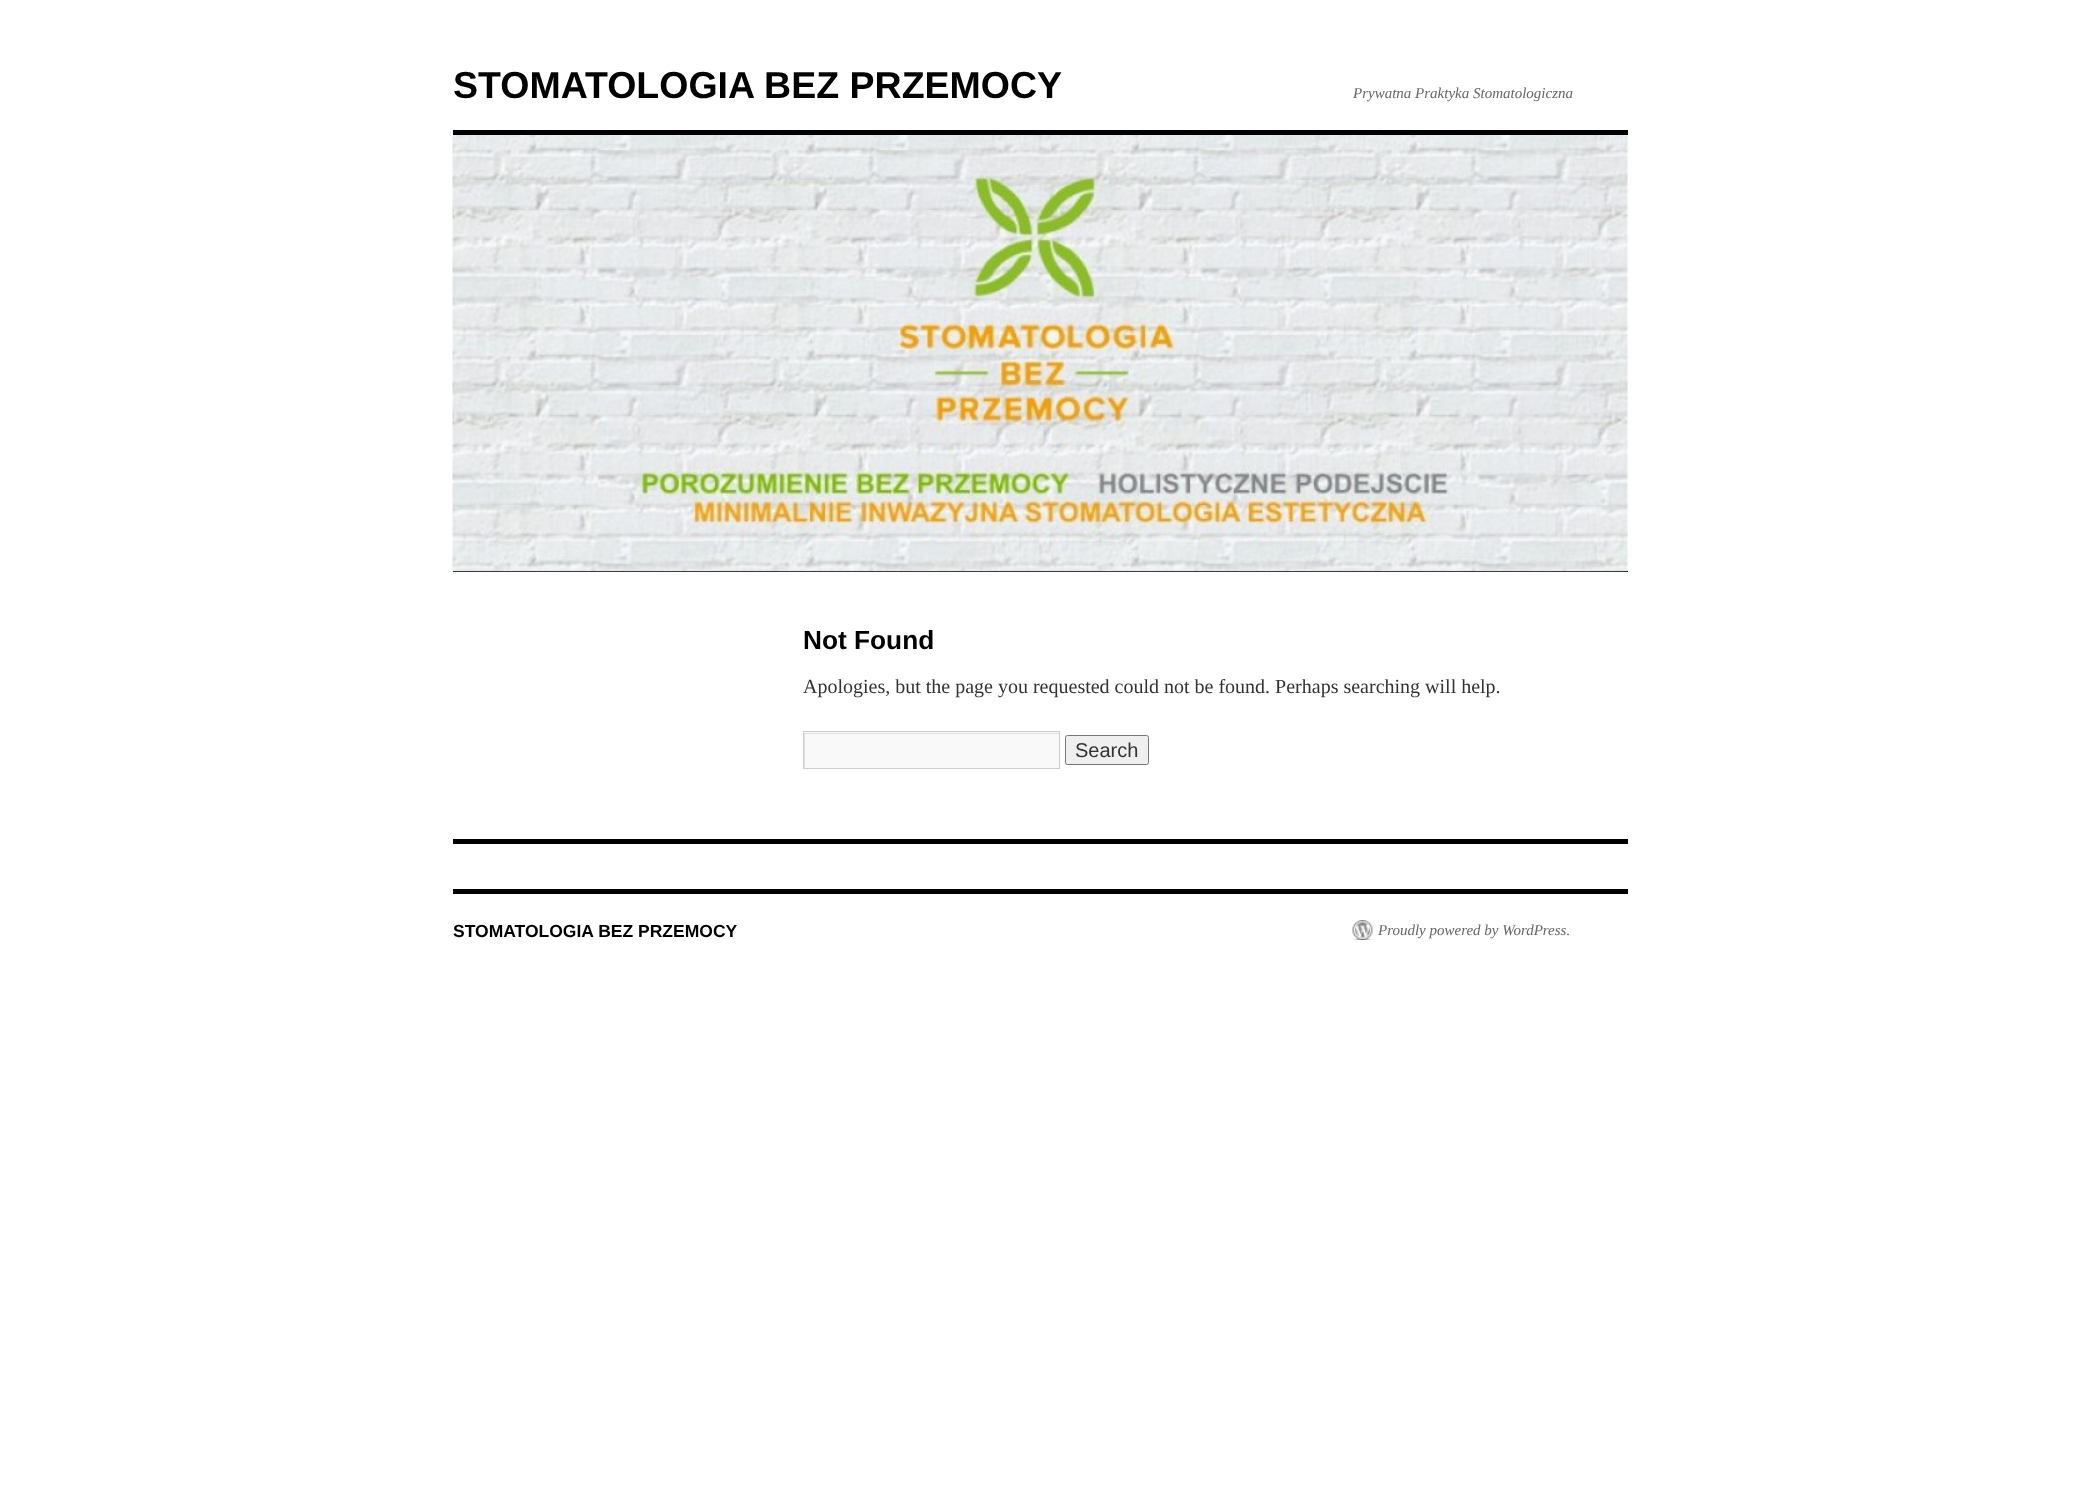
async function draw(canvas) {
	canvas.width = 2079;
	canvas.height = 1486;
	const c = canvas.getContext('2d');
	c.miterLimit = 4;
	c.fontKerning = 'normal';
	async function loadImage(src) {
		const img = new Image();
		img.src = src;
		await img.decode();
		return img;
	}

	c.fillStyle = '#fff';
	c.fillRect(0, 0, 2079, 1486);
	c.font = 'bold 37.5px Liberation Sans';
	c.fillStyle = '#000';
	c.fillText('STOMATOLOGIA BEZ PRZEMOCY', 453, 98);
	c.font = 'italic 15px Liberation Serif';
	c.fillStyle = '#666';
	c.fillText('Prywatna Praktyka Stomatologiczna', 1353, 98);
	c.fillStyle = '#000';
	c.fillRect(453, 130, 1175, 5);
	c.fillRect(453, 571, 1175, 1);
	c.drawImage(await loadImage('img1.png'), 452, 135, 1176, 437);
	c.font = 'bold 26.25px Liberation Sans';
	c.fillText('Not Found', 803, 649);
	c.font = '20px Liberation Serif';
	c.fillStyle = '#333';
	c.fillText('Apologies, but the page you requested could not be found. Perhaps searching will help.', 803, 693);
	c.fillStyle = '#f9f9f9';
	c.fillRect(804, 732, 255, 36);
	c.save();
	c.beginPath();
	c.rect(804, 733, 255, 35);
	c.clip();
	c.fillStyle = '#e0e0e0';
	c.beginPath();
	c.moveTo(680, 609);
	c.lineTo(1182, 609);
	c.lineTo(1182, 891);
	c.lineTo(680, 891);
	c.closePath();
	c.moveTo(805, 734);
	c.lineTo(1060, 734);
	c.lineTo(1060, 769);
	c.lineTo(805, 769);
	c.closePath();
	c.fill('evenodd');
	c.restore();
	c.strokeStyle = '#ccc';
	c.strokeRect(803.5, 731.5, 256, 37);
	c.fillStyle = '#efefef';
	c.beginPath();
	c.roundRect(1065.5, 735.5, 83, 29, 2);
	c.fill();
	c.strokeStyle = '#767676';
	c.stroke();
	c.font = '20px Liberation Sans';
	c.fillStyle = '#333';
	c.fillText('Search', 1075, 757);
	c.fillStyle = '#000';
	c.fillRect(453, 839, 1175, 5);
	c.fillRect(453, 889, 1175, 5);
	c.font = 'bold 17.5px Liberation Sans';
	c.fillText('STOMATOLOGIA BEZ PRZEMOCY', 453, 937);
	c.drawImage(await loadImage('img2.png'), 1352, 920, 21, 20);
	c.font = 'italic 15px Liberation Serif';
	c.fillStyle = '#666';
	c.fillText('Proudly powered by WordPress.', 1378, 935);
}

draw(document.querySelector('canvas'));
